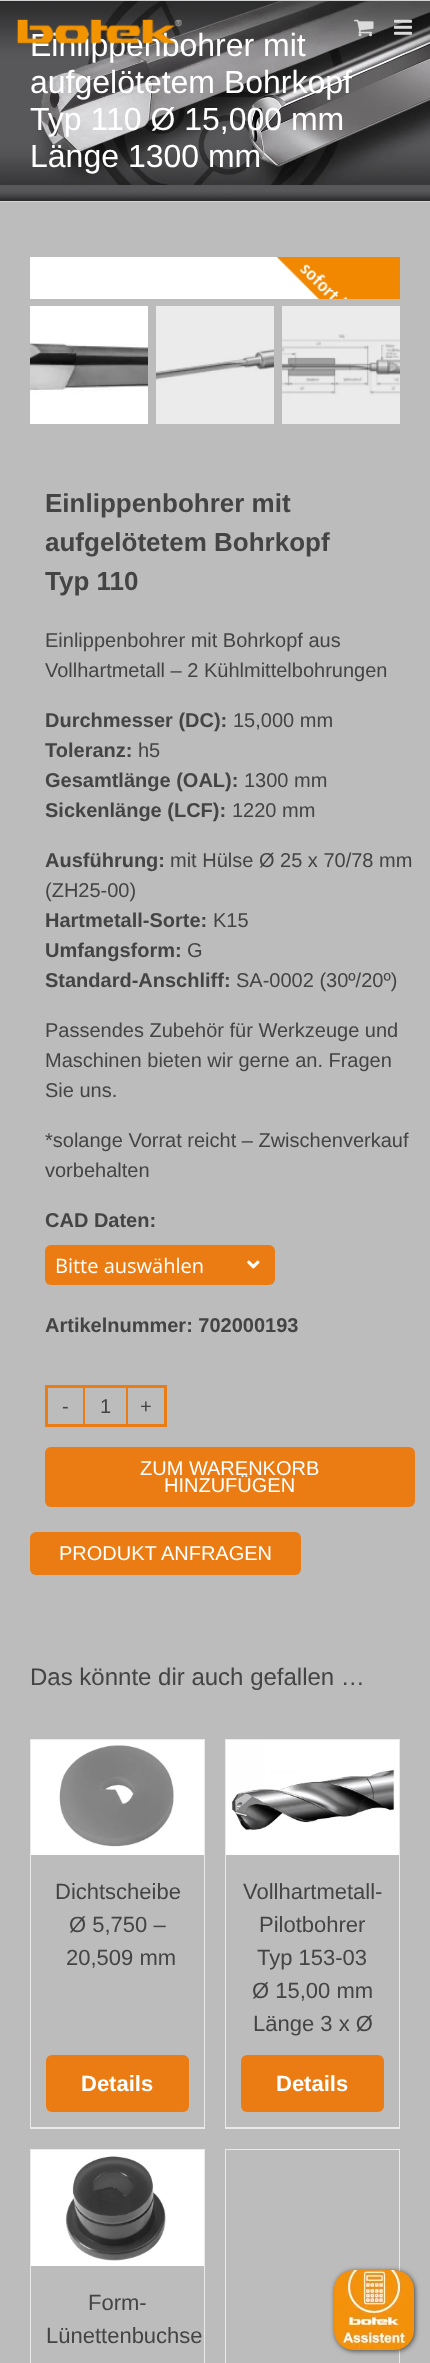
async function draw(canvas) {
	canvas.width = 430;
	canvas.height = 2363;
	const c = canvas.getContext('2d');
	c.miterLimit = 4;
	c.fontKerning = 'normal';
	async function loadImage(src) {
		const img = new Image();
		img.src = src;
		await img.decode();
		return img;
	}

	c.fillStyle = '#bcbcbc';
	c.fillRect(0, 0, 430, 2363);
	c.drawImage(await loadImage('img4.png'), 0, 1, 430, 200);
	c.font = '32px Liberation Sans';
	c.fillStyle = '#fff';
	c.fillText('Einlippenbohrer mit', 30, 56);
	c.drawImage(await loadImage('img1.png'), 17, 19, 165, 25);
	c.drawImage(await loadImage('img2.png'), 354, 19, 20, 18);
	c.drawImage(await loadImage('img3.png'), 394, 19, 18, 16);
	c.fillStyle = '#d2d3d4';
	c.fillRect(0, 0, 430, 1);
	c.fillRect(0, 201, 430, 1);
	c.fillStyle = '#fff';
	for (const [text, x, y] of [
		['aufgelötetem Bohrkopf', 30, 93],
		['Typ 110 Ø 15,000 mm', 30, 130],
		['Länge 1300 mm', 30, 167],
	]) {
		c.fillText(text, x, y);
	}
	c.fillRect(30, 257, 291, 42);
	c.drawImage(await loadImage('img5.png'), 277, 257, 123, 42);
	c.drawImage(await loadImage('img6.png'), 30, 306, 118, 118);
	c.drawImage(await loadImage('img7.png'), 156, 306, 118, 118);
	c.drawImage(await loadImage('img8.png'), 282, 306, 118, 118);
	c.font = 'bold 26px Liberation Sans';
	c.fillStyle = '#444';
	for (const [text, x, y] of [
		['Einlippenbohrer mit', 45, 512],
		['aufgelötetem Bohrkopf', 45, 551],
		['Typ 110', 45, 590],
	]) {
		c.fillText(text, x, y);
	}
	c.font = '20px Liberation Sans';
	c.fillText('Einlippenbohrer mit Bohrkopf aus', 45, 647);
	c.fillText('Vollhartmetall – 2 Kühlmittelbohrungen', 45, 677);
	c.font = 'bold 20px Liberation Sans';
	c.fillText('Durchmesser (DC):', 45, 727);
	c.font = '20px Liberation Sans';
	c.fillText('15,000 mm', 233, 727);
	c.font = 'bold 20px Liberation Sans';
	c.fillText('Toleranz:', 45, 757);
	c.font = '20px Liberation Sans';
	c.fillText('h5', 138, 757);
	c.font = 'bold 20px Liberation Sans';
	c.fillText('Gesamtlänge (OAL):', 45, 787);
	c.font = '20px Liberation Sans';
	c.fillText('1300 mm', 244, 787);
	c.font = 'bold 20px Liberation Sans';
	c.fillText('Sickenlänge (LCF):', 45, 817);
	c.font = '20px Liberation Sans';
	c.fillText('1220 mm', 232, 817);
	c.font = 'bold 20px Liberation Sans';
	c.fillText('Ausführung:', 45, 867);
	c.font = '20px Liberation Sans';
	c.fillText('mit Hülse Ø 25 x 70/78 mm', 170, 867);
	c.fillText('(ZH25-00)', 45, 897);
	c.font = 'bold 20px Liberation Sans';
	c.fillText('Hartmetall-Sorte:', 45, 927);
	c.font = '20px Liberation Sans';
	c.fillText('K15', 213, 927);
	c.font = 'bold 20px Liberation Sans';
	c.fillText('Umfangsform:', 45, 957);
	c.font = '20px Liberation Sans';
	c.fillText('G', 187, 957);
	c.font = 'bold 20px Liberation Sans';
	c.fillText('Standard-Anschliff:', 45, 987);
	c.font = '20px Liberation Sans';
	for (const [text, x, y] of [
		['SA-0002 (30º/20º)', 236, 987],
		['Passendes Zubehör für Werkzeuge und', 45, 1037],
		['Maschinen bieten wir gerne an. Fragen', 45, 1067],
		['Sie uns.', 45, 1097],
		['*solange Vorrat reicht – Zwischenverkauf', 45, 1147],
		['vorbehalten', 45, 1177],
	]) {
		c.fillText(text, x, y);
	}
	c.font = 'bold 20px Liberation Sans';
	c.fillText('CAD Daten:', 45, 1227);
	c.fillStyle = '#ea7c13';
	c.beginPath();
	c.roundRect(45, 1245, 230, 40, 6);
	c.fill();
	c.font = '20px Open Sans';
	c.fillStyle = '#fff';
	c.fillText('Bitte auswählen', 55, 1273);
	c.drawImage(await loadImage('img9.png'), 247, 1260, 13, 9);
	c.font = 'bold 20px Liberation Sans';
	c.fillStyle = '#444';
	c.fillText('Artikelnummer: 702000193', 45, 1332);
	c.strokeStyle = '#ea7c13';
	c.strokeRect(45.5, 1385.5, 121, 41);
	c.lineWidth = 2;
	c.strokeRect(47, 1387, 37, 38);
	c.font = '20px Liberation Sans';
	c.fillText('-', 62, 1413);
	c.fillStyle = '#ea7c13';
	c.fillRect(85, 1386, 41, 2);
	c.fillRect(85, 1424, 41, 2);
	c.fillStyle = '#444';
	c.fillText('1', 100, 1413);
	c.strokeRect(127, 1387, 38, 38);
	c.fillText('+', 140, 1413);
	c.fillStyle = '#ea7c13';
	c.beginPath();
	c.roundRect(45, 1447, 370, 60, 6);
	c.fill();
	c.fillStyle = '#fff';
	c.fillText('ZUM WARENKORB', 140, 1475);
	c.fillText('HINZUFÜGEN', 164, 1492);
	c.fillStyle = '#ea7c13';
	c.beginPath();
	c.roundRect(30, 1532, 271, 43, 6);
	c.fill();
	c.fillStyle = '#fff';
	c.fillText('PRODUKT ANFRAGEN', 59, 1560);
	c.font = '24px Liberation Sans';
	c.fillStyle = '#444';
	c.fillText('Das könnte dir auch gefallen …', 30, 1685);
	for (const [x, y, w, h, color] of [
		[30, 1739, 175, 1, '#ebeaea'],
		[204, 1739, 1, 390, '#ebeaea'],
		[30, 2127, 175, 2, '#ebeaea'],
		[30, 1739, 1, 390, '#ebeaea'],
	]) {
		c.fillStyle = color;
		c.fillRect(x, y, w, h);
	}
	c.drawImage(await loadImage('img10.png'), 31, 1740, 173, 115);
	c.font = '22px Liberation Sans';
	c.fillStyle = '#444';
	for (const [text, x, y] of [
		['Dichtscheibe', 55, 1899],
		['Ø 5,750 –', 69, 1932],
		['20,509 mm', 66, 1965],
	]) {
		c.fillText(text, x, y);
	}
	c.fillStyle = '#ea7c13';
	c.beginPath();
	c.roundRect(46, 2055, 143, 57, 6);
	c.fill();
	c.font = 'bold 22px Liberation Sans';
	c.fillStyle = '#fff';
	c.fillText('Details', 81, 2091);
	for (const [x, y, w, h, color] of [
		[225, 1739, 175, 1, '#ebeaea'],
		[399, 1739, 1, 390, '#ebeaea'],
		[225, 2127, 175, 2, '#ebeaea'],
		[225, 1739, 1, 390, '#ebeaea'],
	]) {
		c.fillStyle = color;
		c.fillRect(x, y, w, h);
	}
	c.drawImage(await loadImage('img11.png'), 226, 1740, 173, 115);
	c.font = '22px Liberation Sans';
	c.fillStyle = '#444';
	for (const [text, x, y] of [
		['Vollhartmetall-', 243, 1899],
		['Pilotbohrer', 259, 1932],
		['Typ 153-03', 257, 1965],
		['Ø 15,00 mm', 252, 1998],
		['Länge 3 x Ø', 253, 2031],
	]) {
		c.fillText(text, x, y);
	}
	c.fillStyle = '#ea7c13';
	c.beginPath();
	c.roundRect(241, 2055, 143, 57, 6);
	c.fill();
	c.font = 'bold 22px Liberation Sans';
	c.fillStyle = '#fff';
	c.fillText('Details', 276, 2091);
	for (const [x, y, w, h, color] of [
		[30, 2149, 175, 1, '#ebeaea'],
		[204, 2149, 1, 214, '#ebeaea'],
		[30, 2149, 1, 214, '#ebeaea'],
	]) {
		c.fillStyle = color;
		c.fillRect(x, y, w, h);
	}
	c.drawImage(await loadImage('img12.png'), 31, 2150, 173, 116);
	c.font = '22px Liberation Sans';
	c.fillStyle = '#444';
	c.fillText('Form-', 88, 2310);
	c.fillText('Lünettenbuchse', 46, 2343);
	for (const [x, y, w, h, color] of [
		[225, 2149, 175, 1, '#ebeaea'],
		[399, 2149, 1, 214, '#ebeaea'],
		[225, 2149, 1, 214, '#ebeaea'],
	]) {
		c.fillStyle = color;
		c.fillRect(x, y, w, h);
	}
	c.fillStyle = '#494949';
	c.filter = 'blur(2.5px)';
	c.beginPath();
	c.roundRect(335, 2271, 80, 80, 20);
	c.fill();
	c.filter = 'none';
	c.drawImage(await loadImage('img13.png'), 334, 2270, 80, 80);
}

draw(document.querySelector('canvas'));
